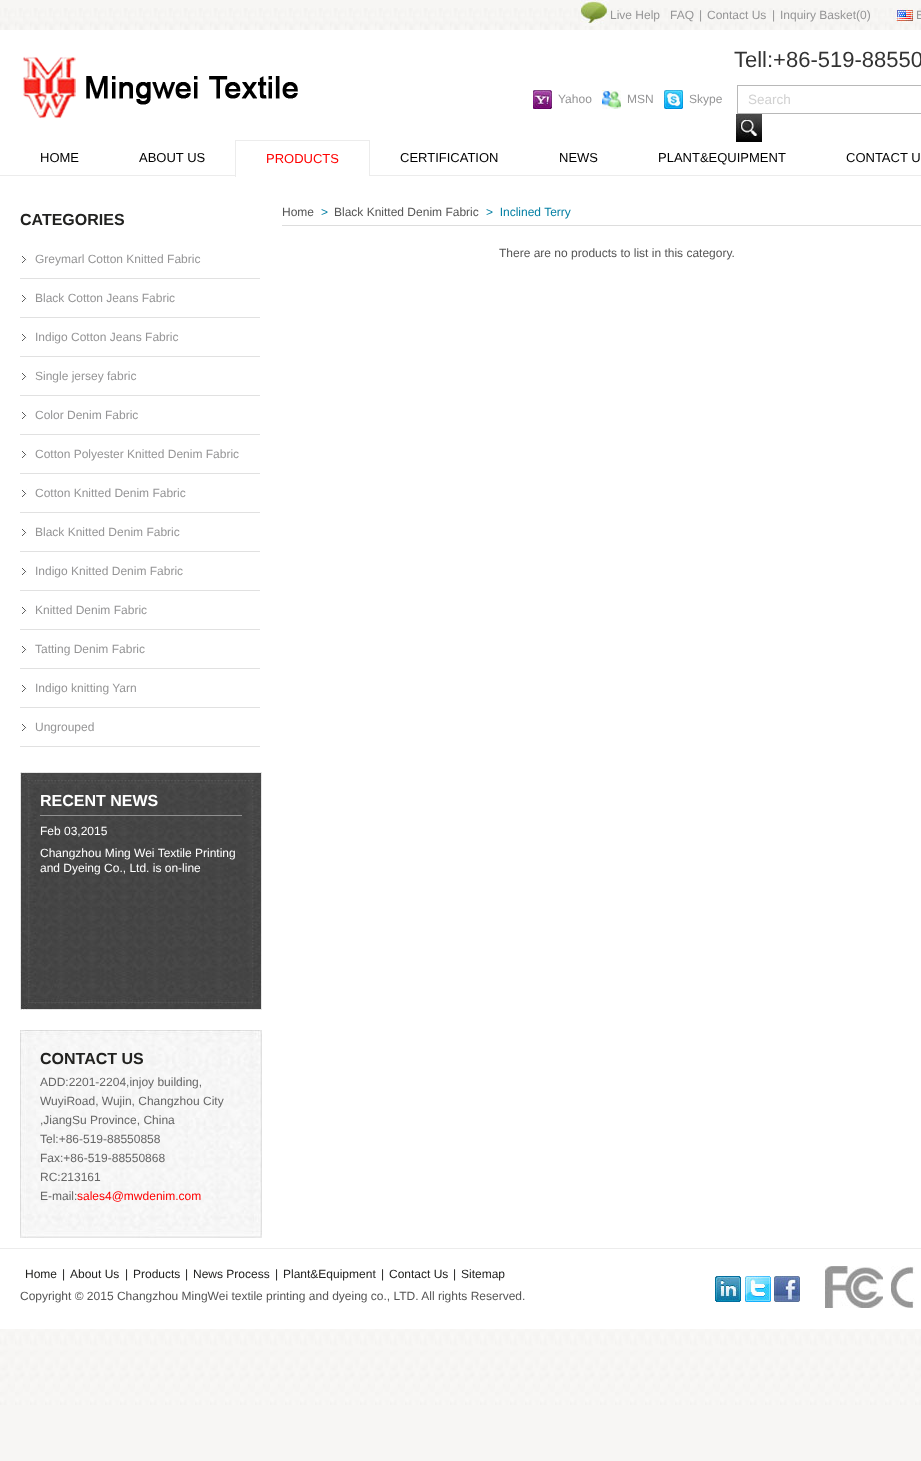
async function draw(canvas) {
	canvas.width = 921;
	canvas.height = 1461;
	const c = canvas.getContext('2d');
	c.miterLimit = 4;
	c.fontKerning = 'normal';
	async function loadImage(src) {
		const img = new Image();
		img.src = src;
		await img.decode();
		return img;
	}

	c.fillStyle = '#f7f6f4';
	c.fillRect(0, 0, 921, 1461);
	c.drawImage(await loadImage('img1.png'), 0, 8, 921, 1397);
	c.drawImage(await loadImage('img2.png'), 580, 0, 29, 26);
	c.font = '12px Liberation Sans';
	c.fillStyle = '#959596';
	for (const [text, x, y] of [
		['Live Help', 610, 19],
		['FAQ', 670, 19],
		['|', 699, 19],
		['Contact Us', 707, 19],
		['|', 772, 19],
		['Inquiry Basket(0)', 780, 19],
	]) {
		c.fillText(text, x, y);
	}
	c.drawImage(await loadImage('img3.png'), 896, 9, 18, 13);
	c.fillText('E', 916, 19);
	c.fillStyle = '#fff';
	c.fillRect(0, 30, 921, 1299);
	c.drawImage(await loadImage('img4.png'), 22, 56, 276, 63);
	c.font = '22px Liberation Sans';
	c.fillStyle = '#333';
	c.fillText('Tell:+86-519-88550', 734, 67);
	c.drawImage(await loadImage('img5.png'), 533, 90, 19, 19);
	c.font = '12px Liberation Sans';
	c.fillStyle = '#959596';
	c.fillText('Yahoo', 558, 103);
	c.drawImage(await loadImage('img6.png'), 602, 90, 19, 19);
	c.fillText('MSN', 627, 103);
	c.drawImage(await loadImage('img7.png'), 664, 90, 19, 19);
	c.fillText('Skype', 689, 103);
	c.strokeStyle = '#b8b8b8';
	c.strokeRect(737.5, 85.5, 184, 28);
	c.font = '13.5px Liberation Sans';
	c.fillStyle = '#d1d1d1';
	c.fillText('Search', 748, 104);
	c.drawImage(await loadImage('img8.png'), 736, 114, 26, 28);
	c.fillStyle = '#ececec';
	c.fillRect(0, 175, 921, 1);
	c.font = '13px Liberation Sans';
	c.fillStyle = '#000';
	c.fillText('HOME', 40, 162);
	c.fillText('ABOUT US', 139, 162);
	for (const [x, y, w, h, color] of [
		[236, 175, 133, 1, '#fff'],
		[235, 140, 135, 1, '#ececec'],
		[369, 140, 1, 37, '#ececec'],
		[369, 176, 1, 1, '#fff'],
		[235, 140, 1, 37, '#ececec'],
	]) {
		c.fillStyle = color;
		c.fillRect(x, y, w, h);
	}
	c.fillStyle = '#ff0101';
	c.fillText('PRODUCTS', 266, 163);
	c.fillStyle = '#000';
	for (const [text, x, y] of [
		['CERTIFICATION', 400, 162],
		['NEWS', 559, 162],
		['PLANT&EQUIPMENT', 658, 162],
		['CONTACT U', 846, 162],
	]) {
		c.fillText(text, x, y);
	}
	c.font = 'bold 16px Liberation Sans';
	c.fillStyle = '#222220';
	c.fillText('CATEGORIES', 20, 225);
	c.drawImage(await loadImage('img9.png'), 20, 255, 7, 8);
	c.fillStyle = '#e1e1e1';
	c.fillRect(20, 278, 240, 1);
	c.font = '12px Liberation Sans';
	c.fillStyle = '#959596';
	c.fillText('Greymarl Cotton Knitted Fabric', 35, 263);
	c.drawImage(await loadImage('img9.png'), 20, 294, 7, 8);
	c.fillStyle = '#e1e1e1';
	c.fillRect(20, 317, 240, 1);
	c.fillStyle = '#959596';
	c.fillText('Black Cotton Jeans Fabric', 35, 302);
	c.drawImage(await loadImage('img9.png'), 20, 333, 7, 8);
	c.fillStyle = '#e1e1e1';
	c.fillRect(20, 356, 240, 1);
	c.fillStyle = '#959596';
	c.fillText('Indigo Cotton Jeans Fabric', 35, 341);
	c.drawImage(await loadImage('img9.png'), 20, 372, 7, 8);
	c.fillStyle = '#e1e1e1';
	c.fillRect(20, 395, 240, 1);
	c.fillStyle = '#959596';
	c.fillText('Single jersey fabric', 35, 380);
	c.drawImage(await loadImage('img9.png'), 20, 411, 7, 8);
	c.fillStyle = '#e1e1e1';
	c.fillRect(20, 434, 240, 1);
	c.fillStyle = '#959596';
	c.fillText('Color Denim Fabric', 35, 419);
	c.drawImage(await loadImage('img9.png'), 20, 450, 7, 8);
	c.fillStyle = '#e1e1e1';
	c.fillRect(20, 473, 240, 1);
	c.fillStyle = '#959596';
	c.fillText('Cotton Polyester Knitted Denim Fabric', 35, 458);
	c.drawImage(await loadImage('img9.png'), 20, 489, 7, 8);
	c.fillStyle = '#e1e1e1';
	c.fillRect(20, 512, 240, 1);
	c.fillStyle = '#959596';
	c.fillText('Cotton Knitted Denim Fabric', 35, 497);
	c.drawImage(await loadImage('img9.png'), 20, 528, 7, 8);
	c.fillStyle = '#e1e1e1';
	c.fillRect(20, 551, 240, 1);
	c.fillStyle = '#959596';
	c.fillText('Black Knitted Denim Fabric', 35, 536);
	c.drawImage(await loadImage('img9.png'), 20, 567, 7, 8);
	c.fillStyle = '#e1e1e1';
	c.fillRect(20, 590, 240, 1);
	c.fillStyle = '#959596';
	c.fillText('Indigo Knitted Denim Fabric', 35, 575);
	c.drawImage(await loadImage('img9.png'), 20, 606, 7, 8);
	c.fillStyle = '#e1e1e1';
	c.fillRect(20, 629, 240, 1);
	c.fillStyle = '#959596';
	c.fillText('Knitted Denim Fabric', 35, 614);
	c.drawImage(await loadImage('img9.png'), 20, 645, 7, 8);
	c.fillStyle = '#e1e1e1';
	c.fillRect(20, 668, 240, 1);
	c.fillStyle = '#959596';
	c.fillText('Tatting Denim Fabric', 35, 653);
	c.drawImage(await loadImage('img9.png'), 20, 684, 7, 8);
	c.fillStyle = '#e1e1e1';
	c.fillRect(20, 707, 240, 1);
	c.fillStyle = '#959596';
	c.fillText('Indigo knitting Yarn', 35, 692);
	c.drawImage(await loadImage('img9.png'), 20, 723, 7, 8);
	c.fillStyle = '#e1e1e1';
	c.fillRect(20, 746, 240, 1);
	c.fillStyle = '#959596';
	c.fillText('Ungrouped', 35, 731);
	c.drawImage(await loadImage('img10.png'), 20, 772, 242, 238);
	c.fillStyle = '#919191';
	c.fillRect(40, 815, 202, 1);
	c.font = 'bold 16px Liberation Sans';
	c.fillStyle = '#fff';
	c.fillText('RECENT NEWS', 40, 806);
	c.font = '12px Liberation Sans';
	for (const [text, x, y] of [
		['Feb 03,2015', 40, 835],
		['Changzhou Ming Wei Textile Printing', 40, 857],
		['and Dyeing Co., Ltd. is on-line', 40, 872],
	]) {
		c.fillText(text, x, y);
	}
	c.drawImage(await loadImage('img11.png'), 20, 1030, 242, 208);
	c.font = 'bold 16px Liberation Sans';
	c.fillStyle = '#222220';
	c.fillText('CONTACT US', 40, 1064);
	c.font = '12px Liberation Sans';
	c.fillStyle = '#666';
	for (const [text, x, y] of [
		['ADD:2201-2204,injoy building,', 40, 1086],
		['WuyiRoad, Wujin, Changzhou City', 40, 1105],
		[',JiangSu Province, China', 40, 1124],
		['Tel:+86-519-88550858', 40, 1143],
		['Fax:+86-519-88550868', 40, 1162],
		['RC:213161', 40, 1181],
		['E-mail:', 40, 1200],
	]) {
		c.fillText(text, x, y);
	}
	c.fillStyle = '#ff0101';
	c.fillText('sales4@mwdenim.com', 77, 1200);
	c.fillStyle = '#ddd';
	c.fillRect(282, 225, 639, 1);
	c.fillStyle = '#555';
	c.fillText('Home', 282, 216);
	c.fillStyle = '#037fa3';
	c.fillText('>', 321, 216);
	c.fillStyle = '#555';
	c.fillText('Black Knitted Denim Fabric', 334, 216);
	c.fillStyle = '#037fa3';
	c.fillText('>  Inclined Terry', 486, 216);
	c.fillStyle = '#555';
	c.fillText('There are no products to list in this category.', 499, 257);
	c.fillStyle = '#ececec';
	c.fillRect(0, 1248, 921, 1);
	c.fillStyle = '#222220';
	for (const [text, x, y] of [
		['Home', 25, 1278],
		['|', 62, 1278],
		['About Us', 70, 1278],
		['|', 125, 1278],
		['Products', 133, 1278],
		['|', 185, 1278],
		['News Process', 193, 1278],
		['|', 275, 1278],
		['Plant&Equipment', 283, 1278],
		['|', 381, 1278],
		['Contact Us', 389, 1278],
		['|', 453, 1278],
		['Sitemap', 461, 1278],
	]) {
		c.fillText(text, x, y);
	}
	c.fillStyle = '#555';
	c.fillText('Copyright © 2015 Changzhou MingWei textile printing and dyeing co., LTD. All rights Reserved.', 20, 1300);
	c.drawImage(await loadImage('img12.png'), 715, 1276, 26, 26);
	c.drawImage(await loadImage('img13.png'), 745, 1276, 26, 26);
	c.drawImage(await loadImage('img14.png'), 774, 1276, 26, 26);
	c.drawImage(await loadImage('img15.png'), 825, 1266, 58, 42);
	c.drawImage(await loadImage('img16.png'), 891, 1266, 24, 42);
}

draw(document.querySelector('canvas'));
